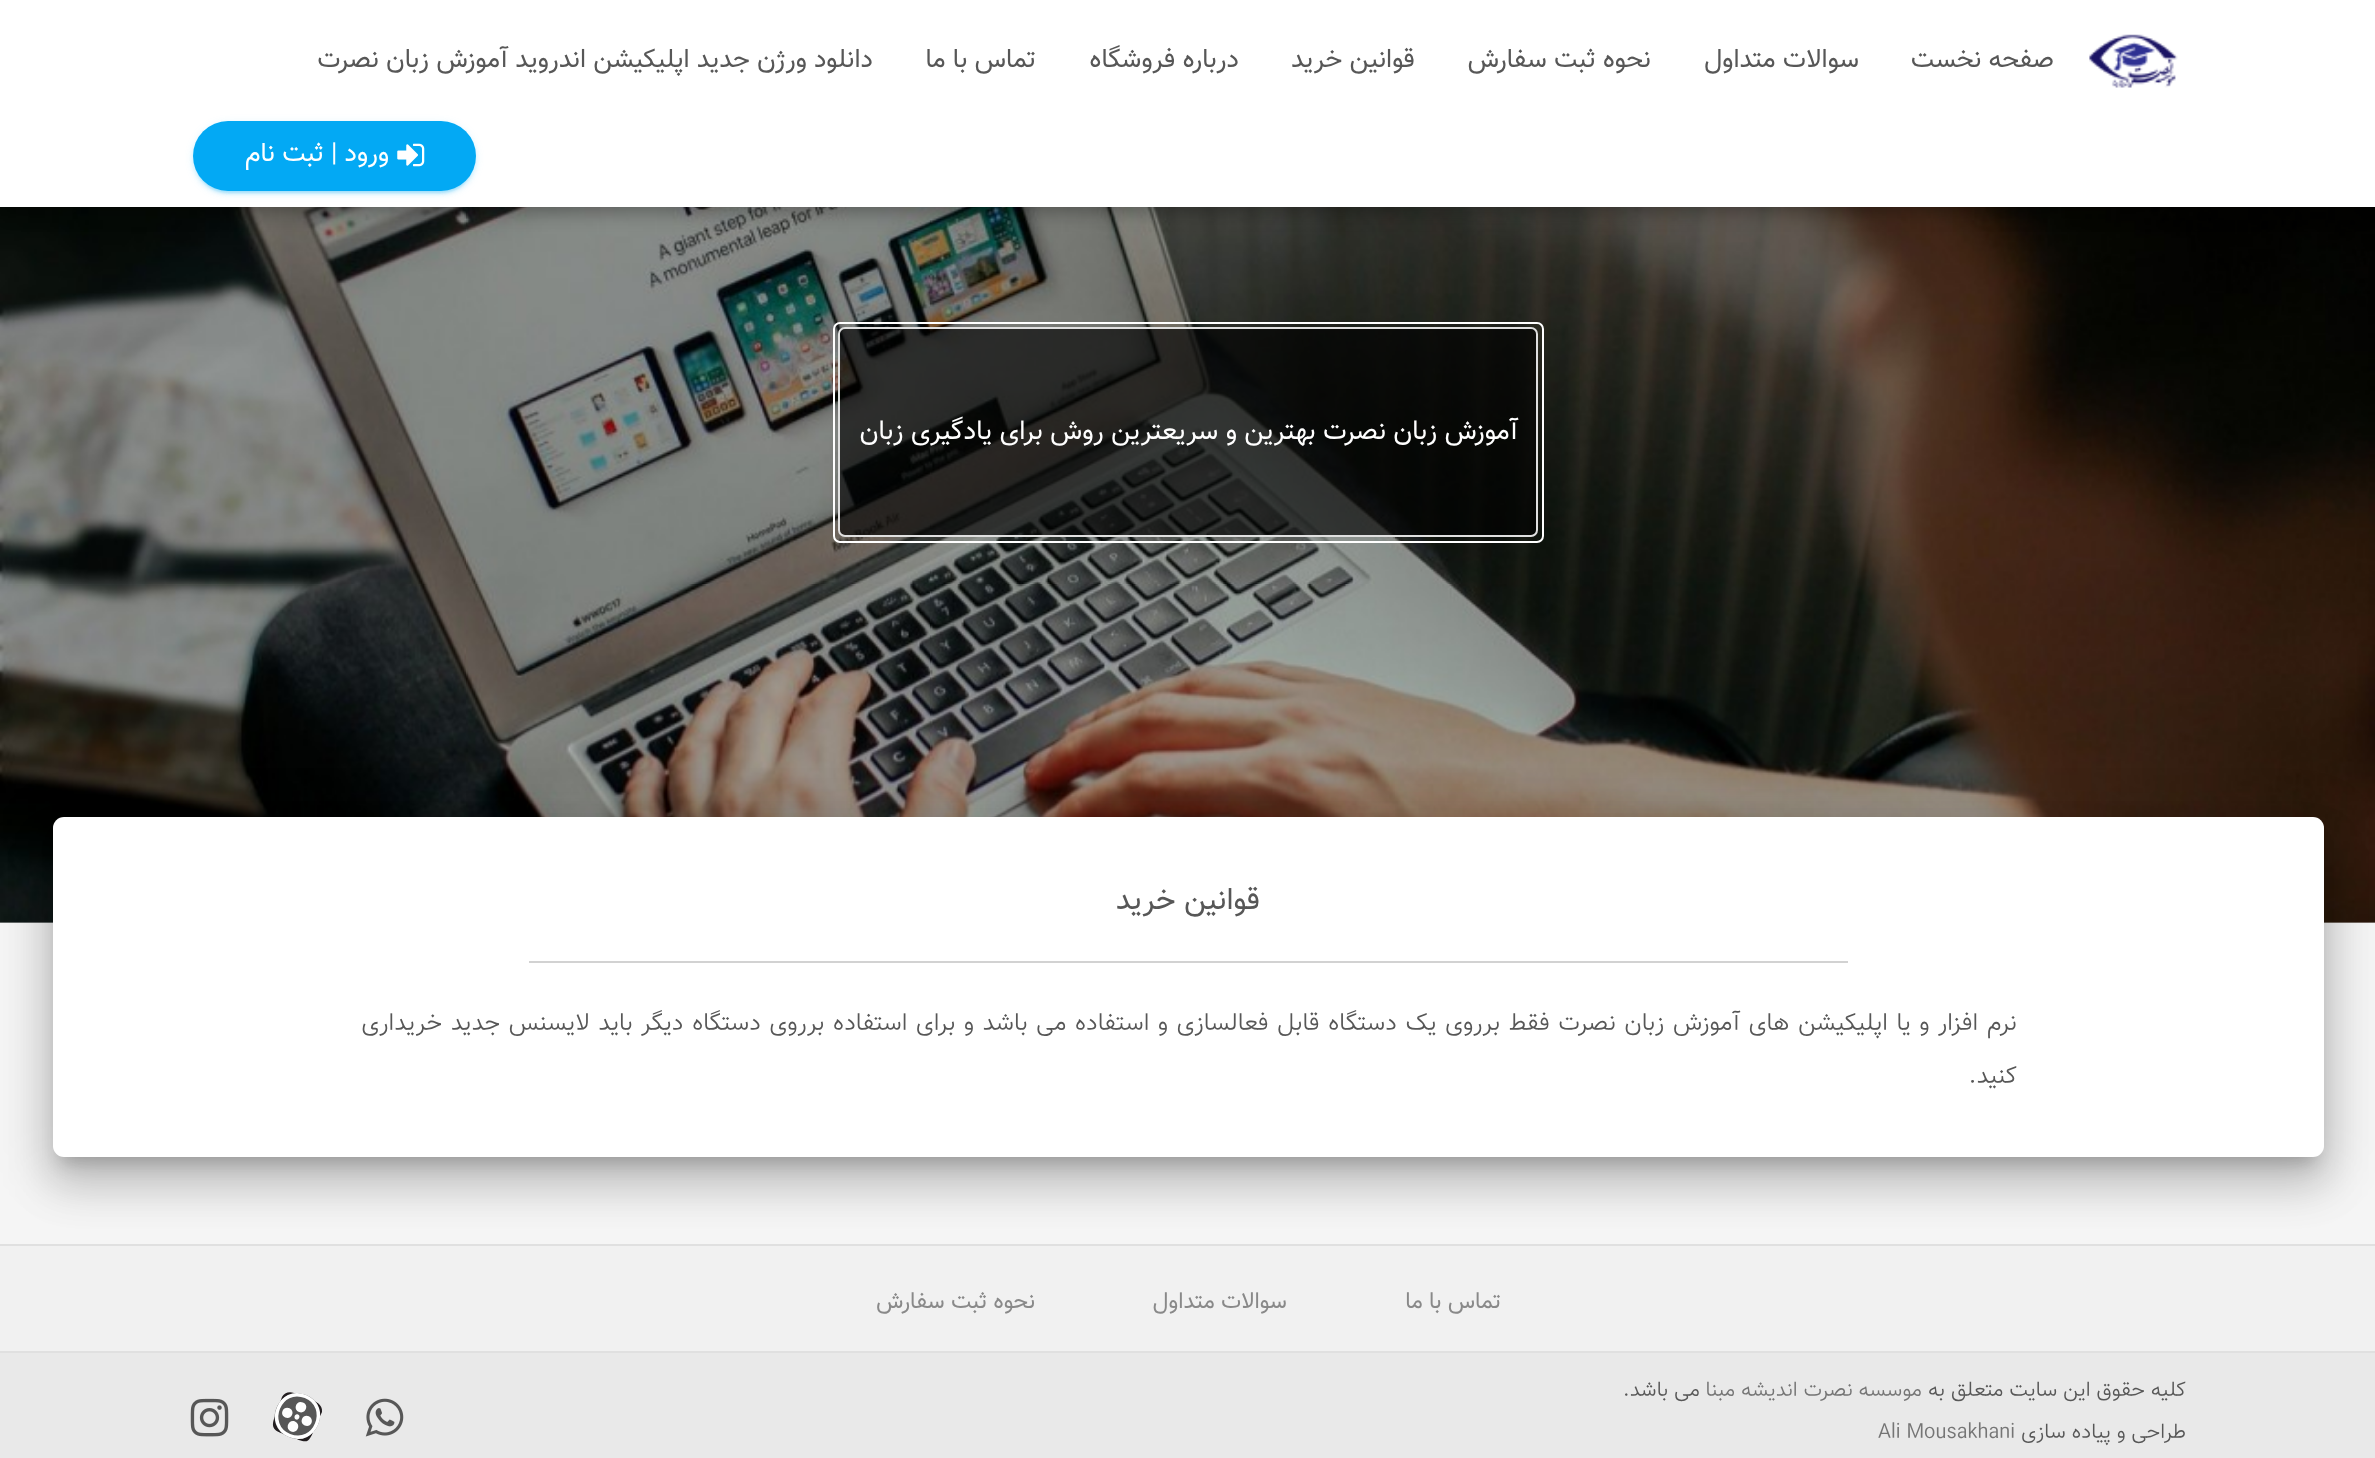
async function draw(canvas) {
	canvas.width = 2375;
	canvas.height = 1458;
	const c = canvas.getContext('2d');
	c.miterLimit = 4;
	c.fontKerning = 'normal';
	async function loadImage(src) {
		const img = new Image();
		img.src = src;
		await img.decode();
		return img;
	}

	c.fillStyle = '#f5f5f5';
	c.fillRect(0, 0, 2375, 1458);
	c.drawImage(await loadImage('img3.png'), 0, 207, 2375, 716);
	c.fillStyle = '#0000004d';
	c.filter = 'blur(9px)';
	c.beginPath();
	c.rect(9, 23, 2359, 189);
	c.fill();
	c.filter = 'none';
	c.fillStyle = '#fff';
	c.fillRect(0, 0, 2375, 207);
	c.drawImage(await loadImage('img1.png'), 2089, 34, 89, 54);
	c.direction = 'rtl';
	c.font = '26.25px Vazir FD';
	c.fillStyle = '#575757';
	for (const [text, x, y] of [
		['صفحه نخست', 2054, 67],
		['سوالات متداول', 1859, 67],
		['نحوه ثبت سفارش', 1651, 67],
		['قوانین خرید', 1415, 67],
		['درباره فروشگاه', 1239, 67],
		['تماس با ما', 1036, 67],
		['دانلود ورژن جدید اپلیکیشن اندروید آموزش زبان نصرت', 873, 67],
	]) {
		c.fillText(text, x, y);
	}
	c.fillStyle = '#03a9f41f';
	c.filter = 'blur(4.5px)';
	c.beginPath();
	c.roundRect(193, 123, 283, 70, 35);
	c.fill();
	c.filter = 'none';
	c.fillStyle = '#03a9f433';
	c.filter = 'blur(1px)';
	c.beginPath();
	c.roundRect(196, 130, 277, 63, 31.5);
	c.fill();
	c.filter = 'none';
	c.fillStyle = '#03a9f424';
	c.filter = 'blur(2px)';
	c.beginPath();
	c.roundRect(193, 124, 283, 70, 35);
	c.fill();
	c.filter = 'none';
	c.fillStyle = '#03a9f4';
	c.beginPath();
	c.roundRect(193, 121, 283, 70, 35);
	c.fill();
	c.drawImage(await loadImage('img2.png'), 397, 143, 28, 24);
	c.fillStyle = '#fff';
	c.fillText('ورود | ثبت نام', 389, 161);
	c.fillStyle = '#000000a6';
	c.beginPath();
	c.roundRect(839, 328, 698, 208, 6);
	c.fill();
	c.strokeStyle = '#e0e0e0';
	c.lineWidth = 2;
	c.stroke();
	c.beginPath();
	c.roundRect(834, 323, 709, 219, 6);
	c.strokeStyle = '#fff';
	c.stroke();
	c.font = '26.8px Vazir FD';
	c.fillStyle = '#fff';
	c.fillText('آموزش زبان نصرت بهترین و سریعترین روش برای یادگیری زبان', 1518, 439);
	c.fillStyle = '#00000033';
	c.filter = 'blur(9px)';
	c.beginPath();
	c.roundRect(61, 840, 2254, 322, 2);
	c.fill();
	c.filter = 'none';
	c.fillStyle = '#f1f1f1';
	c.fillRect(0, 1246, 2375, 105);
	c.fillStyle = '#e0e0e0';
	c.fillRect(0, 1244, 2375, 2);
	c.fillStyle = '#0000001f';
	c.filter = 'blur(26px)';
	c.beginPath();
	c.roundRect(44, 819, 2289, 357, 19);
	c.fill();
	c.filter = 'none';
	c.fillStyle = '#00000024';
	c.filter = 'blur(21px)';
	c.beginPath();
	c.roundRect(49, 842, 2279, 346, 14);
	c.fill();
	c.filter = 'none';
	c.fillStyle = '#fff';
	c.beginPath();
	c.roundRect(53, 817, 2271, 340, 11);
	c.fill();
	c.font = '30.5px Vazir FD';
	c.fillStyle = '#575757';
	c.fillText('قوانین خرید', 1260, 909);
	c.fillStyle = '#d2d2d2';
	c.fillRect(529, 961, 1319, 2);
	c.wordSpacing = '1.75px';
	c.font = '300 24.5px Vazir FD';
	c.fillStyle = '#575757';
	c.fillText('نرم افزار و یا اپلیکیشن های آموزش زبان نصرت فقط برروی یک دستگاه قابل فعالسازی و استفاده می باشد و برای استفاده برروی دستگاه دیگر باید لایسنس جدید خریداری', 2017, 1030);
	c.wordSpacing = '0px';
	c.fillText('کنید.', 2017, 1083);
	c.fillStyle = '#e9e9e9';
	c.fillRect(0, 1353, 2375, 105);
	c.fillStyle = '#e0e0e0';
	c.fillRect(0, 1351, 2375, 2);
	c.font = '22.75px Vazir FD';
	c.fillStyle = '#898989';
	for (const [text, x, y] of [
		['تماس با ما', 1501, 1308],
		['سوالات متداول', 1287, 1308],
		['نحوه ثبت سفارش', 1035, 1308],
	]) {
		c.fillText(text, x, y);
	}
	c.font = '300 21px Vazir FD';
	c.fillStyle = '#575757';
	c.fillText('کلیه حقوق این سایت متعلق به', 2186, 1396);
	c.fillStyle = '#757575';
	c.fillText('موسسه نصرت اندیشه مبنا', 1922, 1396);
	c.fillStyle = '#575757';
	c.fillText('می باشد.', 1700, 1396);
	c.fillText('طراحی و پیاده سازی', 2186, 1438);
	c.direction = 'ltr';
	c.fillStyle = '#757575';
	c.fillText('Ali Mousakhani', 1878, 1438);
	c.drawImage(await loadImage('img4.png'), 365, 1398, 39, 39);
	c.fillStyle = '#231e20';
	c.beginPath();
	c.moveTo(294, 1393);
	c.lineTo(309, 1399);
	c.bezierCurveTo(315, 1401, 323, 1404, 322, 1412);
	c.lineTo(316, 1425);
	c.bezierCurveTo(308, 1445, 309, 1444, 289, 1436);
	c.bezierCurveTo(277, 1431, 269, 1431, 275, 1416);
	c.lineTo(282, 1397);
	c.bezierCurveTo(284, 1393, 289, 1391, 294, 1393);
	c.closePath();
	c.fill();
	c.fillStyle = '#575757';
	c.beginPath();
	c.moveTo(306, 1395);
	c.bezierCurveTo(334, 1406, 316, 1449, 289, 1437);
	c.bezierCurveTo(261, 1426, 278, 1384, 306, 1395);
	c.closePath();
	c.fill();
	c.beginPath();
	c.moveTo(305.5, 1396.5);
	c.bezierCurveTo(331, 1407, 315, 1446, 289.5, 1435.5);
	c.bezierCurveTo(264, 1425, 280, 1386, 305.5, 1396.5);
	c.closePath();
	c.lineWidth = 3.5;
	c.stroke();
	c.fillStyle = '#fff';
	c.beginPath();
	c.moveTo(303, 1402.5);
	c.bezierCurveTo(309.5, 1405, 305.5, 1414.5, 299, 1412);
	c.bezierCurveTo(292.5, 1409.5, 296.5, 1399.5, 303, 1402.5);
	c.closePath();
	c.moveTo(295, 1421.5);
	c.bezierCurveTo(301.5, 1424.5, 297.5, 1434, 291, 1431.5);
	c.bezierCurveTo(284.5, 1429, 288.5, 1419, 295, 1421.5);
	c.closePath();
	c.fill();
	c.beginPath();
	c.moveTo(311.5, 1423);
	c.bezierCurveTo(309, 1429, 299.5, 1425, 302, 1419);
	c.bezierCurveTo(304.5, 1412.5, 314, 1416.5, 311.5, 1423);
	c.closePath();
	c.moveTo(292, 1415);
	c.bezierCurveTo(289.5, 1421, 280, 1417, 282.5, 1411);
	c.bezierCurveTo(285, 1404.5, 295, 1408.5, 292, 1415);
	c.closePath();
	c.fill();
	c.beginPath();
	c.moveTo(298, 1414.5);
	c.bezierCurveTo(301, 1415.5, 299, 1420.5, 296, 1419.5);
	c.bezierCurveTo(293, 1418, 295, 1413, 298, 1414.5);
	c.closePath();
	c.fill();
	c.drawImage(await loadImage('img5.png'), 190, 1398, 39, 39);
}

draw(document.querySelector('canvas'));
